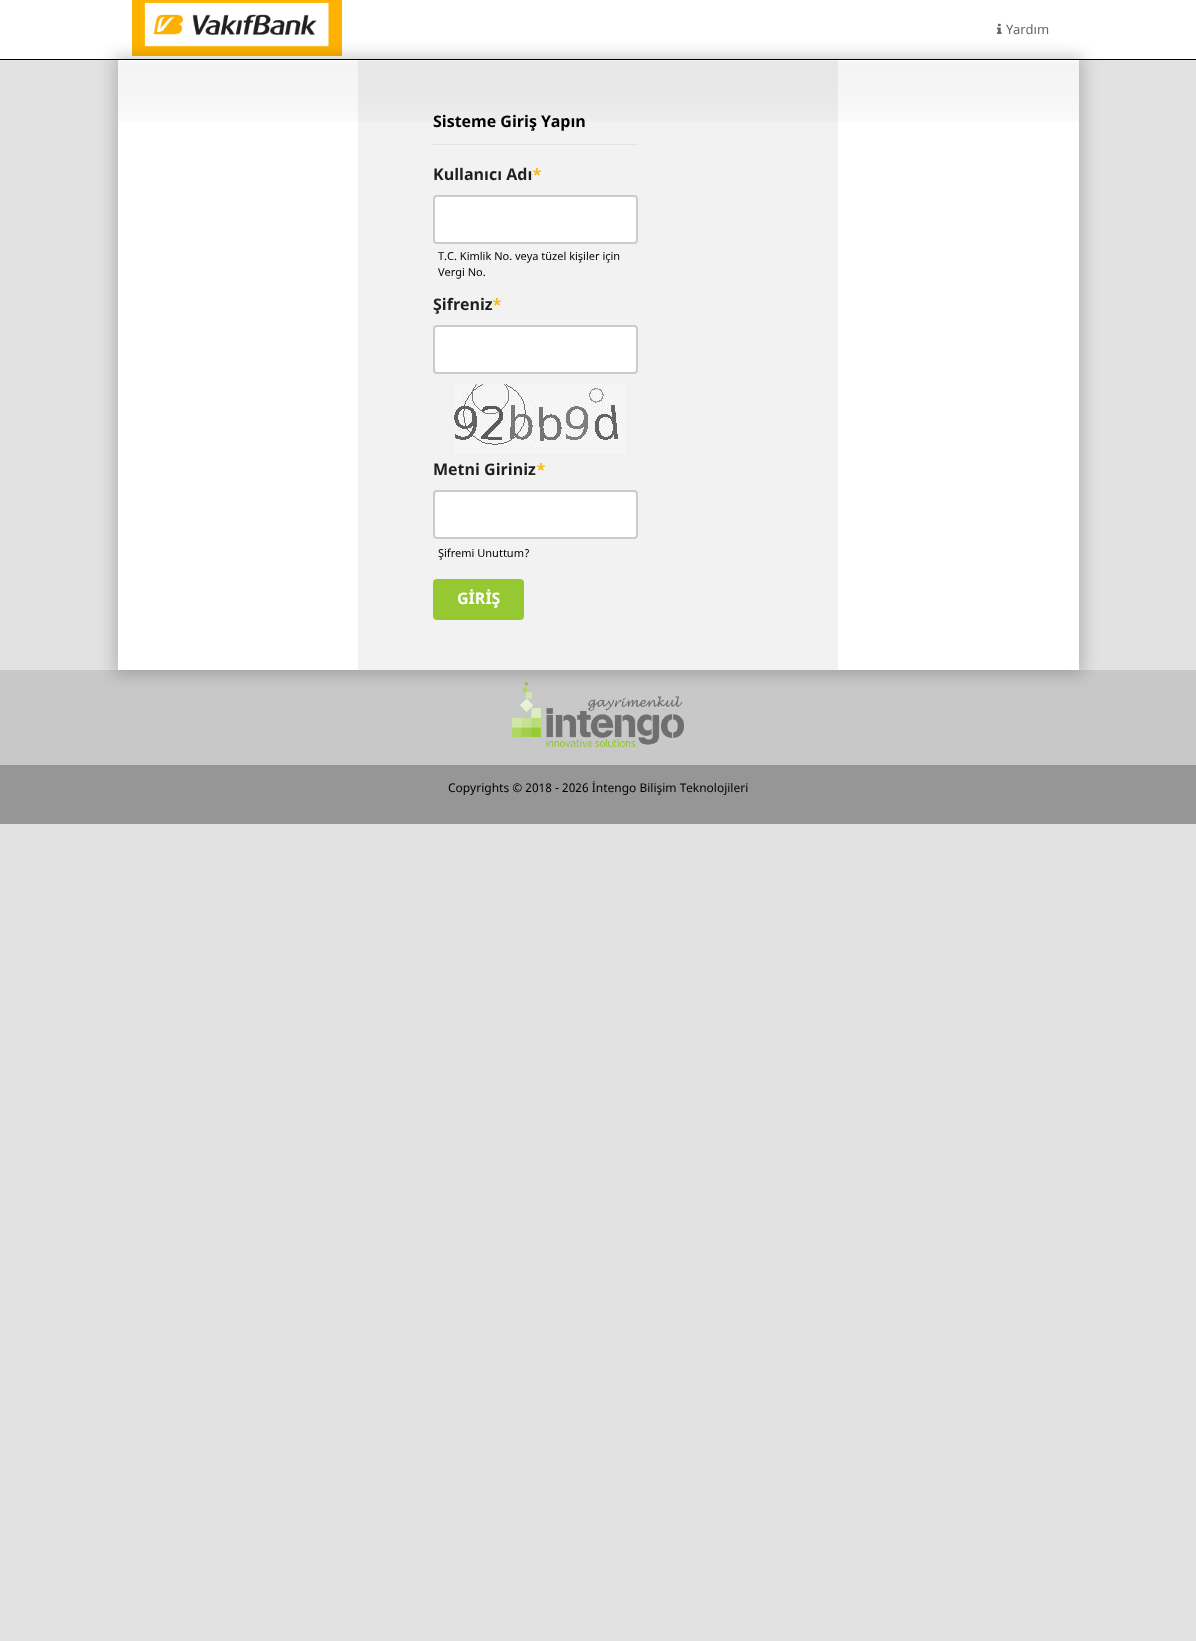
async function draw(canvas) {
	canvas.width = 1196;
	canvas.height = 1641;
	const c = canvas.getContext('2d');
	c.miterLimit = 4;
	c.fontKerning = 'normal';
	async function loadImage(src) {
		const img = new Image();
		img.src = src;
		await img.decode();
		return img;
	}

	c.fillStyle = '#e2e2e2';
	c.fillRect(0, 0, 1196, 1641);
	c.fillStyle = '#fff';
	c.fillRect(0, 0, 1196, 59);
	c.fillStyle = '#000';
	c.fillRect(0, 59, 1196, 1);
	c.drawImage(await loadImage('img1.png'), 132, 0, 210, 56);
	c.fillStyle = '#c8c8c8';
	c.fillRect(0, 670, 1196, 95);
	c.drawImage(await loadImage('img5.png'), 512, 682, 172, 65);
	c.fillStyle = '#00000033';
	c.filter = 'blur(8px)';
	c.beginPath();
	c.rect(114, 56, 969, 618);
	c.fill();
	c.filter = 'none';
	c.drawImage(await loadImage('img2.png'), 997, 23, 5, 11);
	c.font = '13px Noto Sans';
	c.fillStyle = '#666';
	c.fillText('Yardım', 1006, 34);
	c.fillStyle = '#fff';
	c.fillRect(118, 60, 961, 610);
	c.drawImage(await loadImage('img3.png'), 118, 61, 961, 61);
	c.fillStyle = '#0000000d';
	c.fillRect(358, 60, 480, 610);
	c.fillStyle = '#e2e2e2';
	c.fillRect(433, 144, 205, 1);
	c.font = 'bold 16px Noto Sans';
	c.fillStyle = '#000';
	c.fillText('Sisteme Giriş Yapın', 433, 127);
	c.fillStyle = '#1f1f1f';
	c.fillText('Kullanıcı Adı', 433, 180);
	c.fillStyle = '#fdb814';
	c.fillText('*', 532, 180);
	c.fillStyle = '#fff';
	c.beginPath();
	c.roundRect(434, 196, 203, 47, 3);
	c.fill();
	c.strokeStyle = '#c6ccd2';
	c.lineWidth = 2;
	c.stroke();
	c.font = '11px Noto Sans';
	c.fillStyle = '#000';
	c.fillText('T.C. Kimlik No. veya tüzel kişiler için', 438, 260);
	c.fillText('Vergi No.', 438, 276);
	c.font = 'bold 16px Noto Sans';
	c.fillStyle = '#1f1f1f';
	c.fillText('Şifreniz', 433, 310);
	c.fillStyle = '#fdb814';
	c.fillText('*', 492, 310);
	c.fillStyle = '#fff';
	c.beginPath();
	c.roundRect(434, 326, 203, 47, 3);
	c.fill();
	c.stroke();
	c.drawImage(await loadImage('img4.png'), 454, 384, 172, 70);
	c.fillStyle = '#1f1f1f';
	c.fillText('Metni Giriniz', 433, 475);
	c.fillStyle = '#fdb814';
	c.fillText('*', 536, 475);
	c.fillStyle = '#fff';
	c.beginPath();
	c.roundRect(434, 491, 203, 47, 3);
	c.fill();
	c.stroke();
	c.font = '11px Noto Sans';
	c.fillStyle = '#000';
	c.fillText('Şifremi Unuttum?', 438, 557);
	c.fillStyle = '#96c832';
	c.beginPath();
	c.roundRect(433, 579, 91, 41, 4);
	c.fill();
	c.font = 'bold 16px Noto Sans';
	c.fillStyle = '#fff';
	c.fillText('GİRİŞ', 457, 604);
	c.fillStyle = '#969696';
	c.fillRect(0, 765, 1196, 59);
	c.font = '12px Noto Sans';
	c.fillStyle = '#000';
	c.fillText('Copyrights © 2018 - 2026 İntengo Bilişim Teknolojileri', 448, 792);
}

draw(document.querySelector('canvas'));
